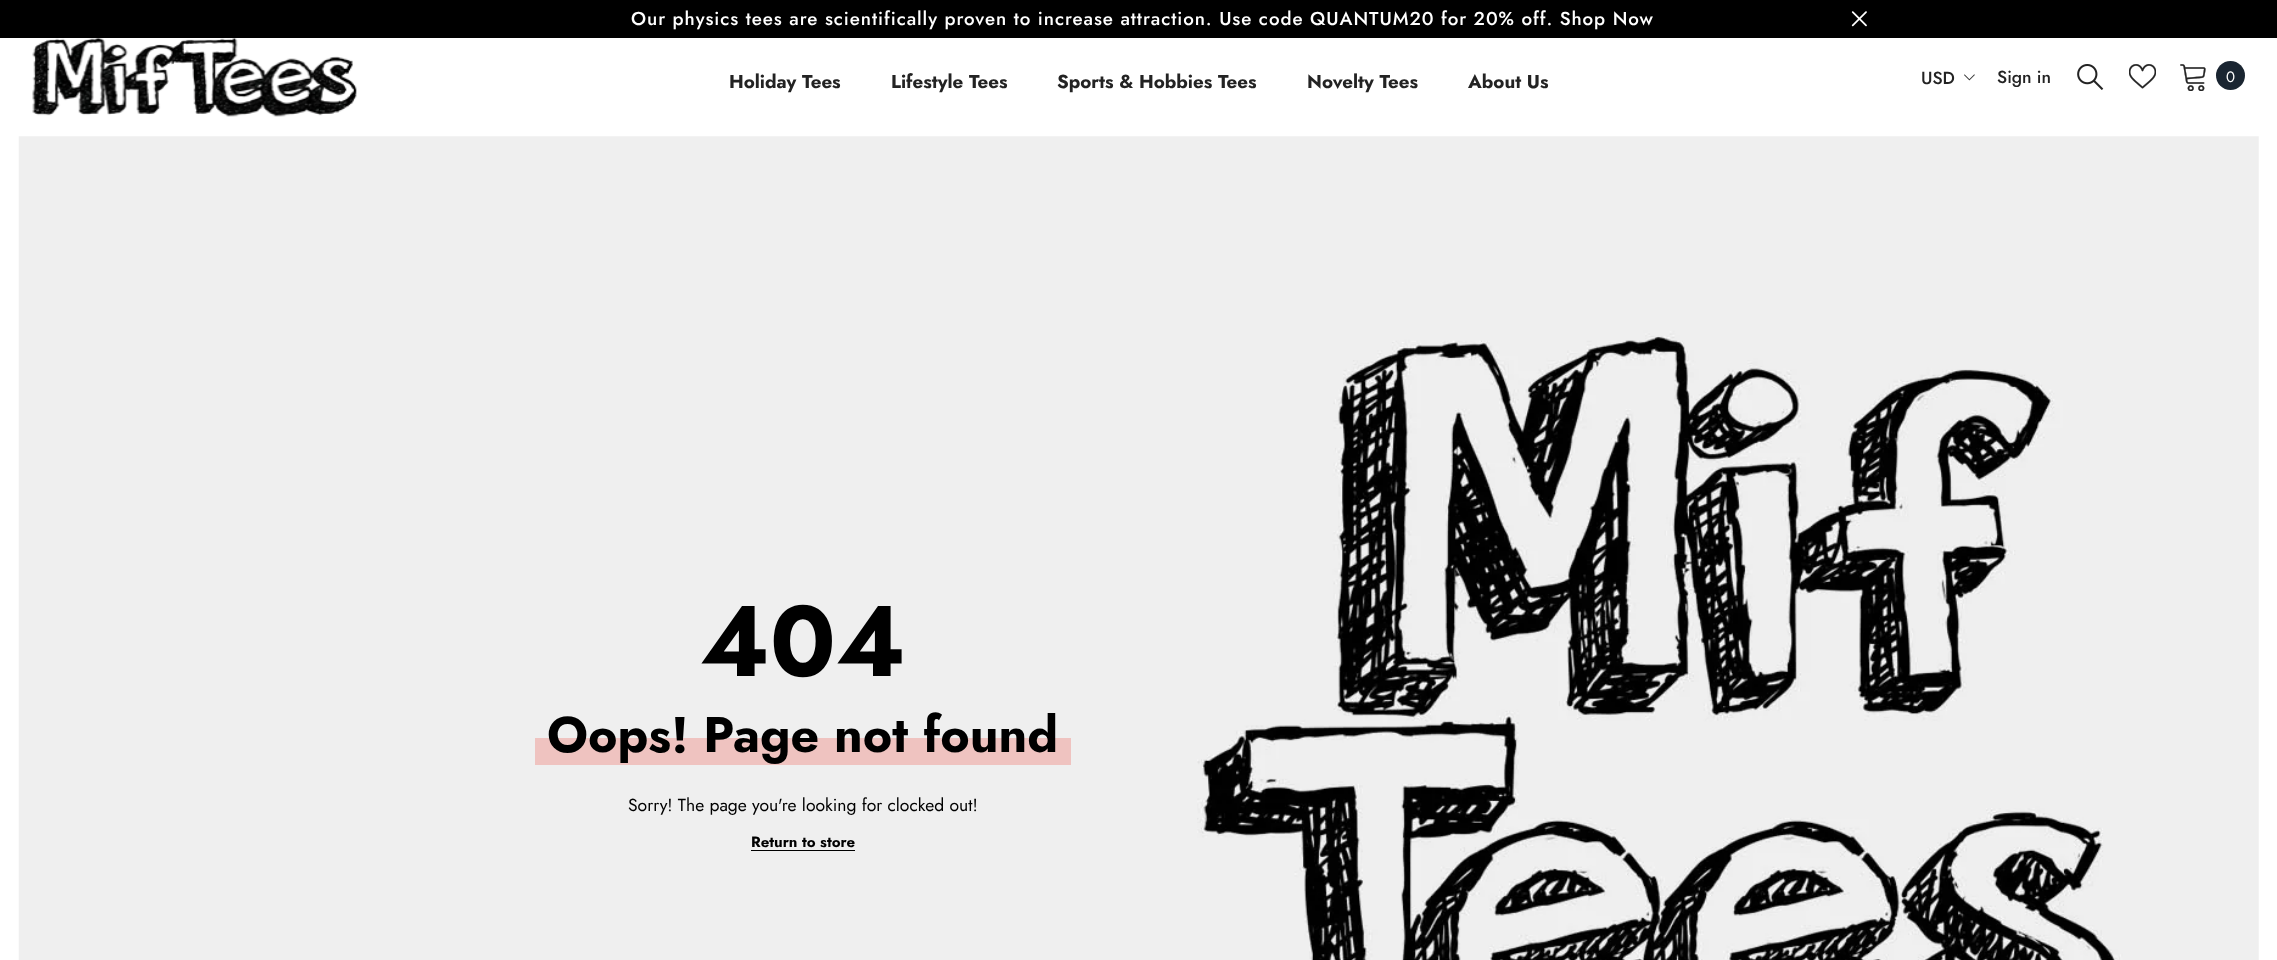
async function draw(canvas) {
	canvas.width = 2277;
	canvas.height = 960;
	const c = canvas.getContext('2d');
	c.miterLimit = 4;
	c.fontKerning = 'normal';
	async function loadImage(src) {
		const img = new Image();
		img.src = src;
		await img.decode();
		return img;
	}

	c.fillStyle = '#fff';
	c.fillRect(0, 0, 2277, 960);
	c.fillStyle = '#000';
	c.fillRect(0, 0, 2277, 38);
	c.letterSpacing = '0.94px';
	c.font = '500 18.75px Jost';
	c.fillStyle = '#fff';
	c.fillText('Our physics tees are scientifically proven to increase attraction. Use code QUANTUM20 for 20% off. Shop Now', 631, 25);
	c.drawImage(await loadImage('img1.png'), 1851, 11, 16, 16);
	c.drawImage(await loadImage('img2.png'), 32, 38, 325, 79);
	c.letterSpacing = '0px';
	c.font = 'bold 18.75px Jost';
	c.fillStyle = '#232323';
	for (const [text, x, y] of [
		['Holiday Tees', 729, 88],
		['Lifestyle Tees', 891, 88],
		['Sports & Hobbies Tees', 1057, 88],
		['Novelty Tees', 1307, 88],
		['About Us', 1468, 88],
	]) {
		c.fillText(text, x, y);
	}
	c.font = '500 17.5px Jost';
	c.fillText('USD', 1921, 84);
	c.drawImage(await loadImage('img3.png'), 1964, 74, 11, 7);
	c.fillText('Sign in', 1997, 83);
	c.drawImage(await loadImage('img4.png'), 2077, 64, 27, 26);
	c.drawImage(await loadImage('img5.png'), 2129, 64, 27, 25);
	c.drawImage(await loadImage('img6.png'), 2180, 64, 26, 27);
	c.fillStyle = '#1a2531';
	c.beginPath();
	c.arc(2230.5, 75.5, 14.5, 0, 2 * Math.PI);
	c.fill();
	c.font = '15px Jost';
	c.fillStyle = '#fff';
	c.fillText('0', 2226, 82);
	c.drawImage(await loadImage('img7.png'), 18, 136, 2241, 824);
	c.font = 'bold 100px Jost';
	c.fillStyle = '#000';
	c.fillText('404', 700, 676);
	c.fillStyle = '#efc3c0';
	c.fillRect(535, 738, 536, 27);
	c.font = 'bold 50px Jost';
	c.fillStyle = '#000';
	c.fillText('Oops! Page not found', 547, 752);
	c.font = '17.5px Jost';
	c.fillText('Sorry! The page you\'re looking for clocked out!', 628, 811);
	c.font = 'bold 15px Jost';
	c.fillText('Return to store', 751, 847);
	c.fillRect(751, 850, 104, 1);
}

draw(document.querySelector('canvas'));
